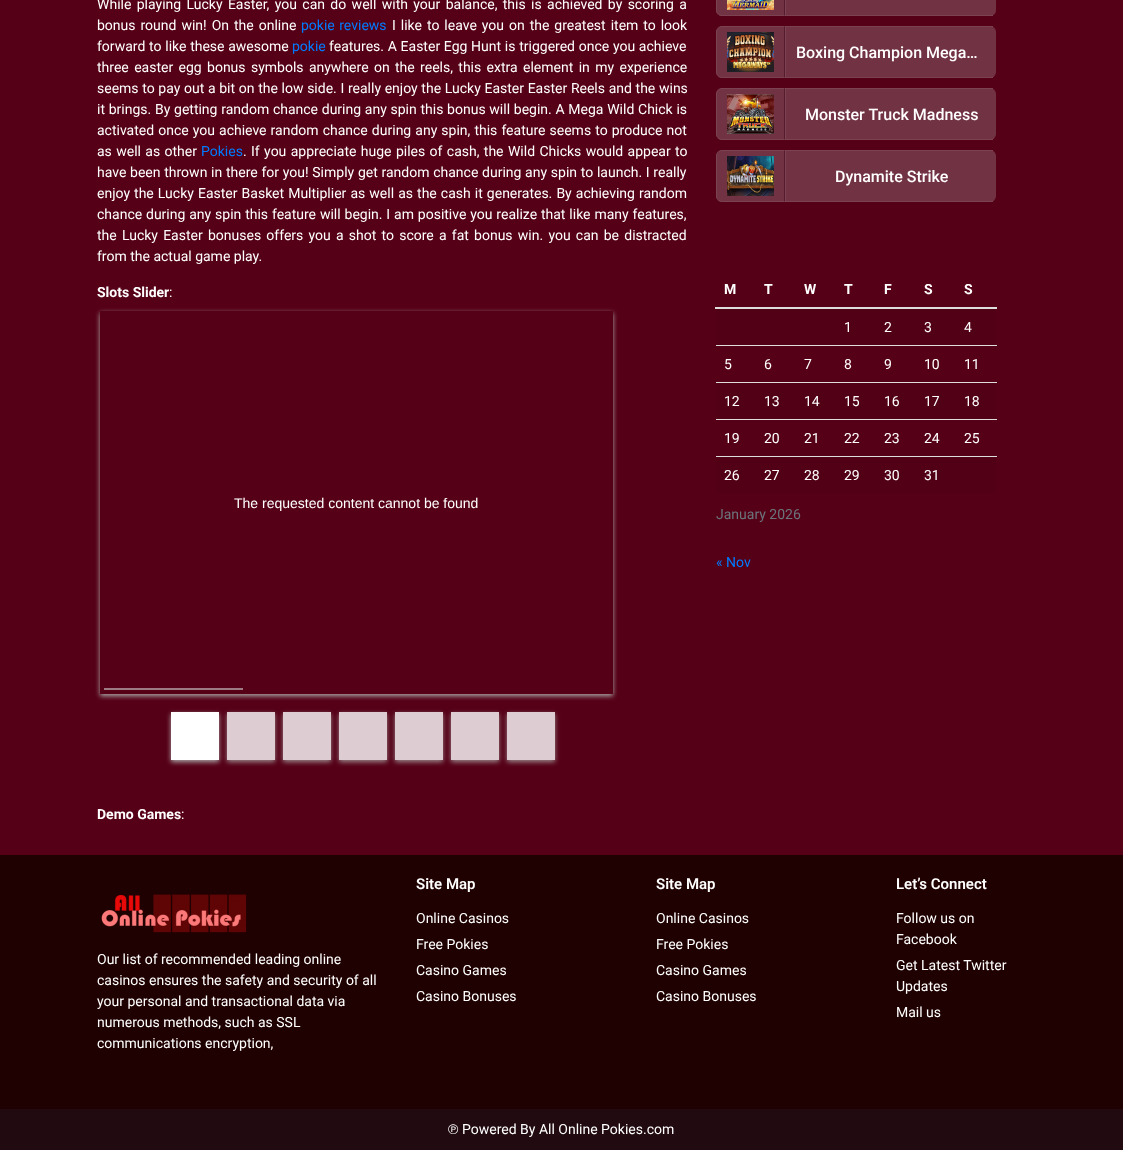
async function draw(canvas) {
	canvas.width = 1123;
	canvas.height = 1150;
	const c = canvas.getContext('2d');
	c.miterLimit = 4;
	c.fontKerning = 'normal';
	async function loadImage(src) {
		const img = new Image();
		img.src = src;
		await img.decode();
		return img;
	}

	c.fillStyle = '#560017';
	c.fillRect(0, 0, 1123, 1150);
	c.wordSpacing = '1.9px';
	c.font = '14px Roboto';
	c.fillStyle = '#fff';
	c.fillText('While playing Lucky Easter, you can do well with your balance, this is achieved by scoring a', 97, 9);
	c.wordSpacing = '1.5px';
	c.fillText('bonus round win! On the online', 97, 30);
	c.wordSpacing = '1px';
	c.fillStyle = '#007bff';
	c.fillText('pokie reviews', 301, 30);
	c.wordSpacing = '1.5px';
	c.fillStyle = '#fff';
	c.fillText('I like to leave you on the greatest item to look', 392, 30);
	c.wordSpacing = '0.25px';
	c.fillText('forward to like these awesome', 97, 51);
	c.wordSpacing = '0px';
	c.fillStyle = '#007bff';
	c.fillText('pokie', 292, 51);
	c.wordSpacing = '0.25px';
	c.fillStyle = '#fff';
	c.fillText('features. A Easter Egg Hunt is triggered once you achieve', 329, 51);
	c.wordSpacing = '1.9px';
	c.fillText('three easter egg bonus symbols anywhere on the reels, this extra element in my experience', 97, 72);
	c.wordSpacing = '0.2px';
	c.fillText('seems to pay out a bit on the low side. I really enjoy the Lucky Easter Easter Reels and the wins', 97, 93);
	c.wordSpacing = '0.25px';
	c.fillText('it brings. By getting random chance during any spin this bonus will begin. A Mega Wild Chick is', 97, 114);
	c.wordSpacing = '0.6px';
	c.fillText('activated once you achieve random chance during any spin, this feature seems to produce not', 97, 135);
	c.wordSpacing = '0.9px';
	c.fillText('as well as other', 97, 156);
	c.wordSpacing = '0px';
	c.fillStyle = '#007bff';
	c.fillText('Pokies', 201, 156);
	c.wordSpacing = '0.9px';
	c.fillStyle = '#fff';
	c.fillText('. If you appreciate huge piles of cash, the Wild Chicks would appear to', 243, 156);
	c.wordSpacing = '0.25px';
	c.fillText('have been thrown in there for you! Simply get random chance during any spin to launch. I really', 97, 177);
	c.wordSpacing = '0.6px';
	c.fillText('enjoy the Lucky Easter Basket Multiplier as well as the cash it generates. By achieving random', 97, 198);
	c.wordSpacing = '0.4px';
	c.fillText('chance during any spin this feature will begin. I am positive you realize that like many features,', 97, 219);
	c.wordSpacing = '1.75px';
	c.fillText('the Lucky Easter bonuses offers you a shot to score a fat bonus win. you can be distracted', 97, 240);
	c.wordSpacing = '0px';
	c.fillText('from the actual game play.', 97, 261);
	c.font = 'bold 14px Roboto';
	c.fillText('Slots Slider', 97, 297);
	c.font = '14px Roboto';
	c.fillText(':', 169, 297);
	c.save();
	c.beginPath();
	c.moveTo(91, 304);
	c.lineTo(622, 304);
	c.lineTo(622, 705);
	c.lineTo(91, 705);
	c.closePath();
	c.moveTo(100, 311);
	c.lineTo(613, 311);
	c.lineTo(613, 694);
	c.lineTo(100, 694);
	c.closePath();
	c.clip('evenodd');
	c.fillStyle = '#aaa';
	c.filter = 'blur(2.5px)';
	c.beginPath();
	c.rect(100, 313, 513, 383);
	c.fill();
	c.filter = 'none';
	c.restore();
	c.font = '14px Liberation Sans';
	c.fillText('The requested content cannot be found', 234, 508);
	c.fillStyle = '#9d7a84';
	c.fillRect(104, 688, 139, 2);
	c.fillStyle = '#aaa';
	c.filter = 'blur(2.5px)';
	c.beginPath();
	c.rect(171, 714, 48, 48);
	c.fill();
	c.filter = 'none';
	c.fillStyle = '#fff';
	c.fillRect(171, 712, 48, 48);
	c.fillStyle = '#aaaaaacc';
	c.filter = 'blur(2.5px)';
	c.beginPath();
	c.rect(227, 714, 48, 48);
	c.fill();
	c.filter = 'none';
	c.fillStyle = '#ddccd1';
	c.fillRect(227, 712, 48, 48);
	c.fillStyle = '#aaaaaacc';
	c.filter = 'blur(2.5px)';
	c.beginPath();
	c.rect(283, 714, 48, 48);
	c.fill();
	c.filter = 'none';
	c.fillStyle = '#ddccd1';
	c.fillRect(283, 712, 48, 48);
	c.fillStyle = '#aaaaaacc';
	c.filter = 'blur(2.5px)';
	c.beginPath();
	c.rect(339, 714, 48, 48);
	c.fill();
	c.filter = 'none';
	c.fillStyle = '#ddccd1';
	c.fillRect(339, 712, 48, 48);
	c.fillStyle = '#aaaaaacc';
	c.filter = 'blur(2.5px)';
	c.beginPath();
	c.rect(395, 714, 48, 48);
	c.fill();
	c.filter = 'none';
	c.fillStyle = '#ddccd1';
	c.fillRect(395, 712, 48, 48);
	c.fillStyle = '#aaaaaacc';
	c.filter = 'blur(2.5px)';
	c.beginPath();
	c.rect(451, 714, 48, 48);
	c.fill();
	c.filter = 'none';
	c.fillStyle = '#ddccd1';
	c.fillRect(451, 712, 48, 48);
	c.fillStyle = '#aaaaaacc';
	c.filter = 'blur(2.5px)';
	c.beginPath();
	c.rect(507, 714, 48, 48);
	c.fill();
	c.filter = 'none';
	c.fillStyle = '#ddccd1';
	c.fillRect(507, 712, 48, 48);
	c.font = 'bold 14px Roboto';
	c.fillStyle = '#fff';
	c.fillText('Demo Games', 97, 819);
	c.font = '14px Roboto';
	c.fillText(':', 181, 819);
	c.fillStyle = '#713344';
	c.beginPath();
	c.moveTo(722, -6);
	c.lineTo(785, -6);
	c.lineTo(785, 16);
	c.lineTo(722, 16);
	c.bezierCurveTo(718.5, 16, 716, 13.5, 716, 10);
	c.lineTo(716, 0);
	c.bezierCurveTo(716, -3.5, 718.5, -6, 722, -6);
	c.closePath();
	c.fill();
	c.fillStyle = '#541c2c';
	c.beginPath();
	c.moveTo(785, -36);
	c.lineTo(784, -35);
	c.lineTo(784, 15);
	c.lineTo(785, 16);
	c.closePath();
	c.fill();
	c.fillStyle = '#7d4252';
	c.beginPath();
	c.moveTo(785, 16);
	c.lineTo(784, 15);
	c.lineTo(722, 15);
	c.bezierCurveTo(720, 15, 719, 14, 718, 14);
	c.bezierCurveTo(719, 15, 720, 16, 722, 16);
	c.closePath();
	c.fill();
	c.beginPath();
	c.moveTo(716, -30);
	c.lineTo(716, 10);
	c.bezierCurveTo(716, 12, 717, 13, 718, 14);
	c.bezierCurveTo(718, 13, 717, 12, 717, 10);
	c.lineTo(717, -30);
	c.bezierCurveTo(717, -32, 718, -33, 718, -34);
	c.bezierCurveTo(717, -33, 716, -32, 716, -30);
	c.closePath();
	c.fill();
	c.drawImage(await loadImage('img1.png'), 727, 0, 47, 10);
	c.fillStyle = '#713344';
	c.beginPath();
	c.moveTo(785, -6);
	c.lineTo(990, -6);
	c.bezierCurveTo(993.5, -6, 996, -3.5, 996, 0);
	c.lineTo(996, 10);
	c.bezierCurveTo(996, 13.5, 993.5, 16, 990, 16);
	c.lineTo(785, 16);
	c.closePath();
	c.fill();
	c.fillStyle = '#7d4252';
	c.fillRect(785, 15, 208, 1);
	c.fillRect(785, 0, 1, 16);
	c.fillStyle = '#713344';
	c.beginPath();
	c.roundRect(716, 26, 69, 52, [6, 0, 0, 6]);
	c.fill();
	c.fillStyle = '#7d4252';
	c.beginPath();
	c.moveTo(722, 26);
	c.bezierCurveTo(720, 26, 719, 27, 718, 28);
	c.bezierCurveTo(719, 28, 720, 27, 722, 27);
	c.lineTo(784, 27);
	c.lineTo(785, 26);
	c.closePath();
	c.fill();
	c.fillStyle = '#541c2c';
	c.beginPath();
	c.moveTo(785, 26);
	c.lineTo(784, 27);
	c.lineTo(784, 77);
	c.lineTo(785, 78);
	c.closePath();
	c.fill();
	c.fillStyle = '#7d4252';
	c.beginPath();
	c.moveTo(785, 78);
	c.lineTo(784, 77);
	c.lineTo(722, 77);
	c.bezierCurveTo(720, 77, 719, 76, 718, 76);
	c.bezierCurveTo(719, 77, 720, 78, 722, 78);
	c.closePath();
	c.fill();
	c.beginPath();
	c.moveTo(716, 32);
	c.lineTo(716, 72);
	c.bezierCurveTo(716, 74, 717, 75, 718, 76);
	c.bezierCurveTo(718, 75, 717, 74, 717, 72);
	c.lineTo(717, 32);
	c.bezierCurveTo(717, 30, 718, 29, 718, 28);
	c.bezierCurveTo(717, 29, 716, 30, 716, 32);
	c.closePath();
	c.fill();
	c.drawImage(await loadImage('img2.png'), 727, 32, 47, 40);
	c.fillStyle = '#713344';
	c.beginPath();
	c.roundRect(785, 26, 211, 52, [0, 6, 6, 0]);
	c.fill();
	for (const [x, y, w, h, color] of [
		[785, 26, 208, 1, '#7d4252'],
		[785, 77, 208, 1, '#7d4252'],
		[785, 26, 1, 52, '#7d4252'],
	]) {
		c.fillStyle = color;
		c.fillRect(x, y, w, h);
	}
	c.font = '500 16px Roboto';
	c.fillStyle = '#fff';
	c.fillText('Boxing Champion Mega…', 796, 58);
	c.fillStyle = '#713344';
	c.beginPath();
	c.roundRect(716, 88, 69, 52, [6, 0, 0, 6]);
	c.fill();
	c.fillStyle = '#7d4252';
	c.beginPath();
	c.moveTo(722, 88);
	c.bezierCurveTo(720, 88, 719, 89, 718, 90);
	c.bezierCurveTo(719, 90, 720, 89, 722, 89);
	c.lineTo(784, 89);
	c.lineTo(785, 88);
	c.closePath();
	c.fill();
	c.fillStyle = '#541c2c';
	c.beginPath();
	c.moveTo(785, 88);
	c.lineTo(784, 89);
	c.lineTo(784, 139);
	c.lineTo(785, 140);
	c.closePath();
	c.fill();
	c.fillStyle = '#7d4252';
	c.beginPath();
	c.moveTo(785, 140);
	c.lineTo(784, 139);
	c.lineTo(722, 139);
	c.bezierCurveTo(720, 139, 719, 138, 718, 138);
	c.bezierCurveTo(719, 139, 720, 140, 722, 140);
	c.closePath();
	c.fill();
	c.beginPath();
	c.moveTo(716, 94);
	c.lineTo(716, 134);
	c.bezierCurveTo(716, 136, 717, 137, 718, 138);
	c.bezierCurveTo(718, 137, 717, 136, 717, 134);
	c.lineTo(717, 94);
	c.bezierCurveTo(717, 92, 718, 91, 718, 90);
	c.bezierCurveTo(717, 91, 716, 92, 716, 94);
	c.closePath();
	c.fill();
	c.drawImage(await loadImage('img3.png'), 727, 94, 47, 40);
	c.fillStyle = '#713344';
	c.beginPath();
	c.roundRect(785, 88, 211, 52, [0, 6, 6, 0]);
	c.fill();
	for (const [x, y, w, h, color] of [
		[785, 88, 208, 1, '#7d4252'],
		[785, 139, 208, 1, '#7d4252'],
		[785, 88, 1, 52, '#7d4252'],
	]) {
		c.fillStyle = color;
		c.fillRect(x, y, w, h);
	}
	c.fillStyle = '#fff';
	c.fillText('Monster Truck Madness', 805, 120);
	c.fillStyle = '#713344';
	c.beginPath();
	c.roundRect(716, 150, 69, 52, [6, 0, 0, 6]);
	c.fill();
	c.fillStyle = '#7d4252';
	c.beginPath();
	c.moveTo(722, 150);
	c.bezierCurveTo(720, 150, 719, 151, 718, 152);
	c.bezierCurveTo(719, 152, 720, 151, 722, 151);
	c.lineTo(784, 151);
	c.lineTo(785, 150);
	c.closePath();
	c.fill();
	c.fillStyle = '#541c2c';
	c.beginPath();
	c.moveTo(785, 150);
	c.lineTo(784, 151);
	c.lineTo(784, 201);
	c.lineTo(785, 202);
	c.closePath();
	c.fill();
	c.fillStyle = '#7d4252';
	c.beginPath();
	c.moveTo(785, 202);
	c.lineTo(784, 201);
	c.lineTo(722, 201);
	c.bezierCurveTo(720, 201, 719, 200, 718, 200);
	c.bezierCurveTo(719, 201, 720, 202, 722, 202);
	c.closePath();
	c.fill();
	c.beginPath();
	c.moveTo(716, 156);
	c.lineTo(716, 196);
	c.bezierCurveTo(716, 198, 717, 199, 718, 200);
	c.bezierCurveTo(718, 199, 717, 198, 717, 196);
	c.lineTo(717, 156);
	c.bezierCurveTo(717, 154, 718, 153, 718, 152);
	c.bezierCurveTo(717, 153, 716, 154, 716, 156);
	c.closePath();
	c.fill();
	c.drawImage(await loadImage('img4.png'), 727, 156, 47, 40);
	c.fillStyle = '#713344';
	c.beginPath();
	c.roundRect(785, 150, 211, 52, [0, 6, 6, 0]);
	c.fill();
	for (const [x, y, w, h, color] of [
		[785, 150, 208, 1, '#7d4252'],
		[785, 201, 208, 1, '#7d4252'],
		[785, 150, 1, 52, '#7d4252'],
	]) {
		c.fillStyle = color;
		c.fillRect(x, y, w, h);
	}
	c.fillStyle = '#fff';
	c.fillText('Dynamite Strike', 835, 182);
	c.font = 'bold 14px Roboto';
	for (const [text, x, y] of [
		['M', 724, 294],
		['T', 764, 294],
		['W', 804, 294],
		['T', 844, 294],
		['F', 884, 294],
		['S', 924, 294],
	]) {
		c.fillText(text, x, y);
	}
	c.fillStyle = '#ddd';
	c.fillRect(715, 307, 282, 2);
	c.fillStyle = '#fff';
	c.fillText('S', 964, 294);
	c.fillStyle = '#520016';
	c.fillRect(716, 309, 280, 36);
	c.font = '14px Roboto';
	c.fillStyle = '#fff';
	for (const [text, x, y] of [
		['1', 844, 332],
		['2', 884, 332],
		['3', 924, 332],
		['4', 964, 332],
		['5', 724, 369],
		['6', 764, 369],
		['7', 804, 369],
		['8', 844, 369],
		['9', 884, 369],
		['10', 924, 369],
	]) {
		c.fillText(text, x, y);
	}
	c.fillStyle = '#ddd';
	c.fillRect(716, 345, 281, 1);
	c.fillStyle = '#fff';
	c.fillText('11', 964, 369);
	c.fillStyle = '#520016';
	c.fillRect(716, 383, 280, 36);
	c.fillStyle = '#fff';
	for (const [text, x, y] of [
		['12', 724, 406],
		['13', 764, 406],
		['14', 804, 406],
		['15', 844, 406],
		['16', 884, 406],
		['17', 924, 406],
	]) {
		c.fillText(text, x, y);
	}
	c.fillStyle = '#ddd';
	c.fillRect(716, 382, 281, 1);
	c.fillStyle = '#fff';
	for (const [text, x, y] of [
		['18', 964, 406],
		['19', 724, 443],
		['20', 764, 443],
		['21', 804, 443],
		['22', 844, 443],
		['23', 884, 443],
		['24', 924, 443],
	]) {
		c.fillText(text, x, y);
	}
	c.fillStyle = '#ddd';
	c.fillRect(716, 419, 281, 1);
	c.fillStyle = '#fff';
	c.fillText('25', 964, 443);
	c.fillStyle = '#520016';
	c.fillRect(716, 457, 280, 36);
	c.fillStyle = '#ddd';
	c.fillRect(716, 456, 281, 1);
	c.fillStyle = '#fff';
	for (const [text, x, y] of [
		['26', 724, 480],
		['27', 764, 480],
		['28', 804, 480],
		['29', 844, 480],
		['30', 884, 480],
		['31', 924, 480],
	]) {
		c.fillText(text, x, y);
	}
	c.fillStyle = '#6c757d';
	c.fillText('January 2026', 716, 519);
	c.fillStyle = '#007bff';
	c.fillText('« Nov', 716, 567);
	c.fillStyle = '#200101';
	c.fillRect(0, 855, 1123, 254);
	c.drawImage(await loadImage('img5.png'), 101, 894, 146, 39);
	c.fillStyle = '#fff';
	for (const [text, x, y] of [
		['Our list of recommended leading online', 97, 964],
		['casinos ensures the safety and security of all', 97, 985],
		['your personal and transactional data via', 97, 1006],
		['numerous methods, such as SSL', 97, 1027],
		['communications encryption,', 97, 1048],
	]) {
		c.fillText(text, x, y);
	}
	c.font = '600 15px Roboto';
	c.fillText('Site Map', 416, 889);
	c.font = '14px Roboto';
	for (const [text, x, y] of [
		['Online Casinos', 416, 923],
		['Free Pokies', 416, 949],
		['Casino Games', 416, 975],
		['Casino Bonuses', 416, 1001],
	]) {
		c.fillText(text, x, y);
	}
	c.font = '600 15px Roboto';
	c.fillText('Site Map', 656, 889);
	c.font = '14px Roboto';
	for (const [text, x, y] of [
		['Online Casinos', 656, 923],
		['Free Pokies', 656, 949],
		['Casino Games', 656, 975],
		['Casino Bonuses', 656, 1001],
	]) {
		c.fillText(text, x, y);
	}
	c.font = '600 15px Roboto';
	c.fillText('Let’s Connect', 896, 889);
	c.font = '14px Roboto';
	for (const [text, x, y] of [
		['Follow us on', 896, 923],
		['Facebook', 896, 944],
		['Get Latest Twitter', 896, 970],
		['Updates', 896, 991],
		['Mail us', 896, 1017],
	]) {
		c.fillText(text, x, y);
	}
	c.fillStyle = '#210b11';
	c.fillRect(0, 1109, 1123, 41);
	c.font = '14px Liberation Sans';
	c.fillStyle = '#fff';
	c.fillText('℗', 448, 1134);
	c.font = '14px Roboto';
	c.fillText('Powered By All Online Pokies.com', 462, 1134);
}

draw(document.querySelector('canvas'));
